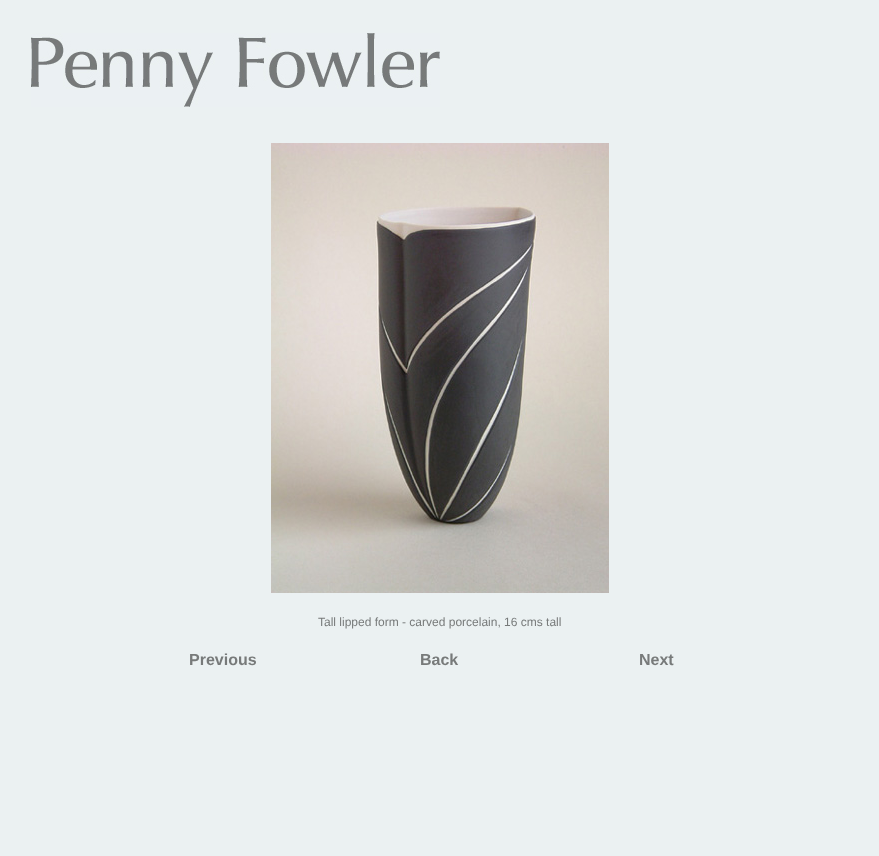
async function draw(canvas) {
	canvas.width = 879;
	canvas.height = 856;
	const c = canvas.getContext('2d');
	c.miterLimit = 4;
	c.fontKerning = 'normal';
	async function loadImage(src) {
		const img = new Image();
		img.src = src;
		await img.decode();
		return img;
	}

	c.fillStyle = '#ebf1f2';
	c.fillRect(0, 0, 879, 856);
	c.drawImage(await loadImage('img1.png'), 31, 33, 409, 74);
	c.drawImage(await loadImage('img2.png'), 271, 143, 338, 450);
	c.font = '12px Liberation Sans';
	c.fillStyle = '#777a7a';
	c.fillText('Tall lipped form - carved porcelain, 16 cms tall', 318, 626);
	c.font = 'bold 16px Liberation Sans';
	for (const [text, x, y] of [
		['Previous', 189, 665],
		['Back', 420, 665],
		['Next', 639, 665],
	]) {
		c.fillText(text, x, y);
	}
}

draw(document.querySelector('canvas'));
